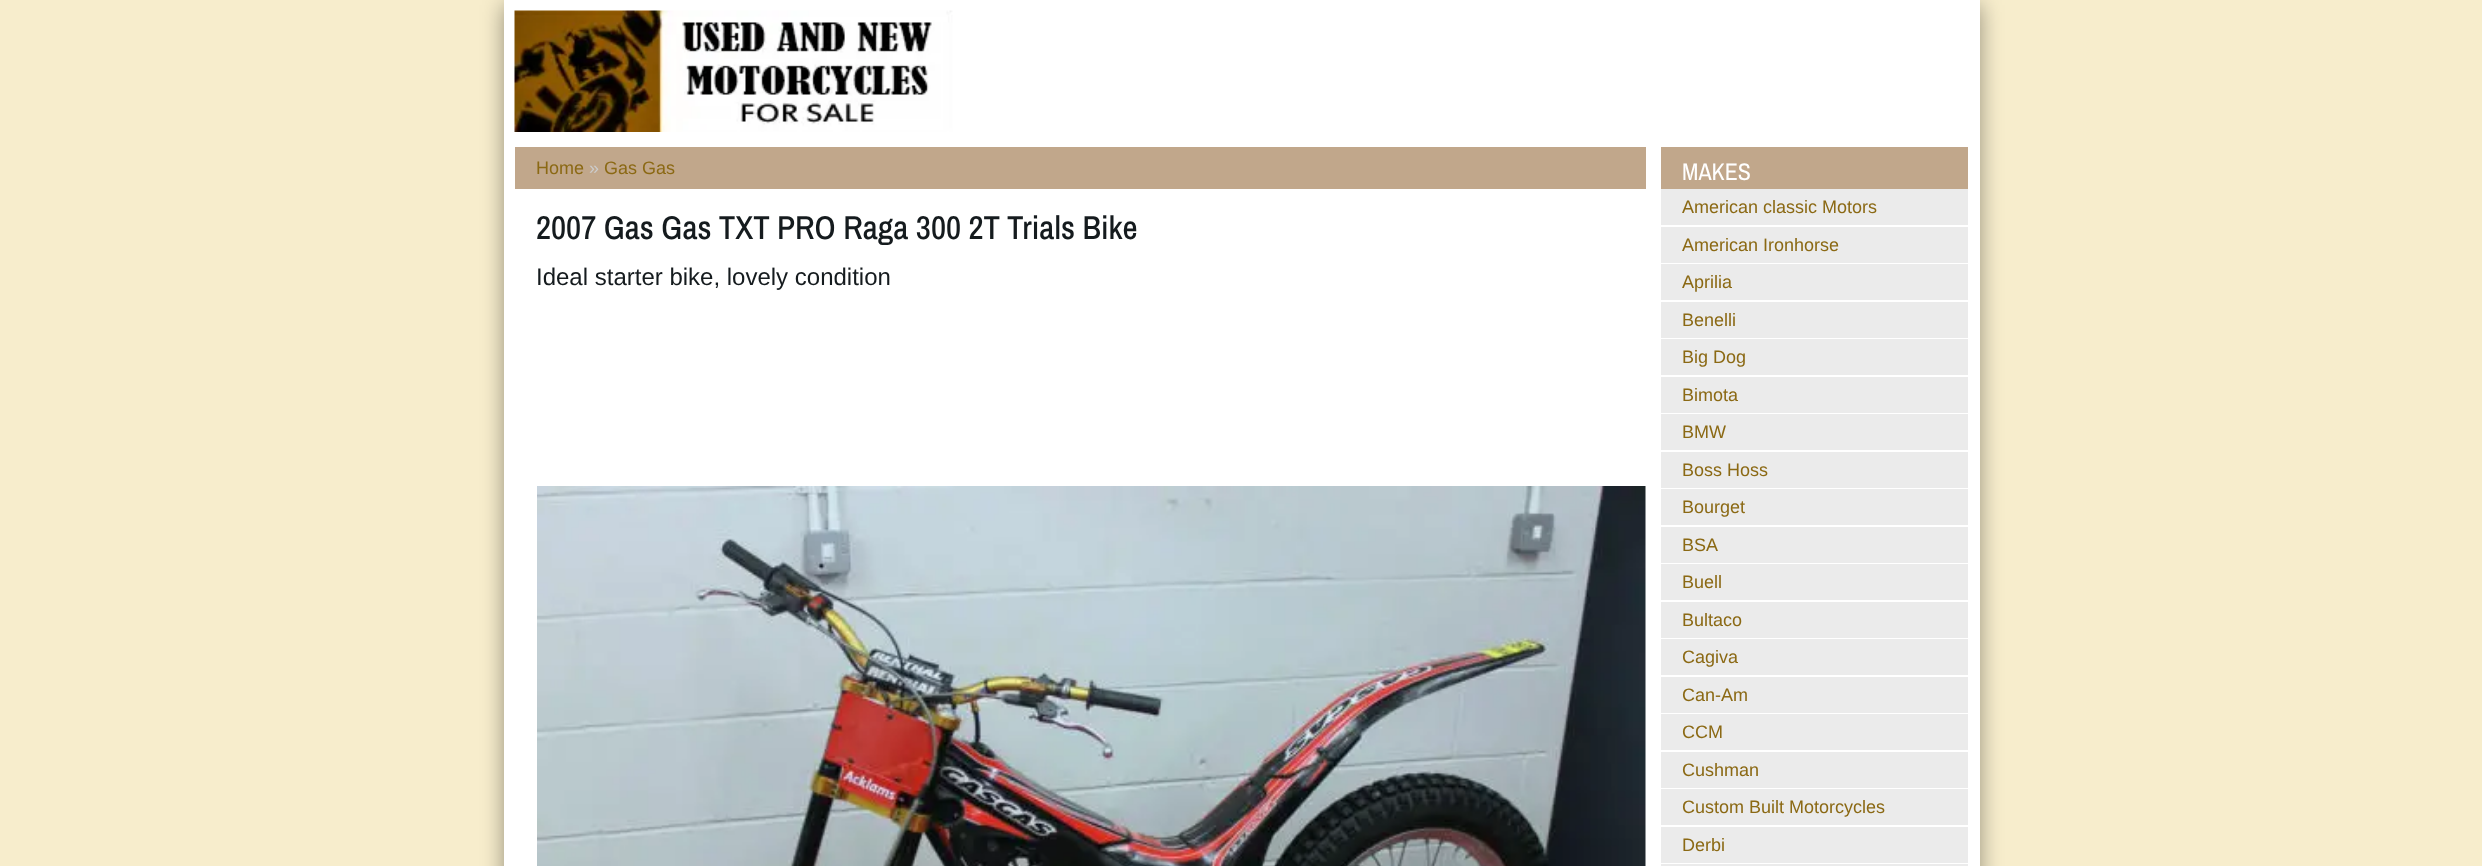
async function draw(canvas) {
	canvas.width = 2482;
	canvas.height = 866;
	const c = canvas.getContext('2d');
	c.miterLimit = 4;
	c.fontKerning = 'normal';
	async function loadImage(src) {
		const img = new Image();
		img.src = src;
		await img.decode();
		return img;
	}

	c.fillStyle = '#f7edcc';
	c.fillRect(0, 0, 2482, 866);
	c.fillStyle = '#00000066';
	c.filter = 'blur(11px)';
	c.beginPath();
	c.rect(504, 5, 1476, 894);
	c.fill();
	c.filter = 'none';
	c.fillStyle = '#fff';
	c.fillRect(504, 0, 1476, 866);
	c.drawImage(await loadImage('img1.png'), 514, 10, 439, 122);
	c.fillStyle = '#c1a78b';
	c.fillRect(515, 147, 1131, 42);
	c.font = '18px Liberation Sans';
	c.fillStyle = '#8b6914';
	c.fillText('Home', 536, 174);
	c.fillStyle = '#ccc';
	c.fillText('»', 589, 174);
	c.fillStyle = '#8b6914';
	c.fillText('Gas Gas', 604, 174);
	c.font = '500 33px Archivo Narrow';
	c.fillStyle = '#151b1e';
	c.fillText('2007 Gas Gas TXT PRO Raga 300 2T Trials Bike', 536, 239);
	c.font = '24px Liberation Sans';
	c.fillText('Ideal starter bike, lovely condition', 536, 285);
	c.drawImage(await loadImage('img2.png'), 537, 486, 1109, 380);
	c.fillStyle = '#c1a78b';
	c.fillRect(1661, 147, 307, 42);
	c.font = '24px Archivo Narrow';
	c.fillStyle = '#fff';
	c.fillText('MAKES', 1682, 180);
	c.fillStyle = '#ebebeb';
	c.fillRect(1661, 189, 307, 36);
	c.font = '18px Liberation Sans';
	c.fillStyle = '#8b6914';
	c.fillText('American classic Motors', 1682, 213);
	c.fillStyle = '#ebebeb';
	c.fillRect(1661, 227, 307, 36);
	c.fillStyle = '#8b6914';
	c.fillText('American Ironhorse', 1682, 251);
	c.fillStyle = '#ebebeb';
	c.fillRect(1661, 264, 307, 36);
	c.fillStyle = '#8b6914';
	c.fillText('Aprilia', 1682, 288);
	c.fillStyle = '#ebebeb';
	c.fillRect(1661, 302, 307, 36);
	c.fillStyle = '#8b6914';
	c.fillText('Benelli', 1682, 326);
	c.fillStyle = '#ebebeb';
	c.fillRect(1661, 339, 307, 36);
	c.fillStyle = '#8b6914';
	c.fillText('Big Dog', 1682, 363);
	c.fillStyle = '#ebebeb';
	c.fillRect(1661, 377, 307, 36);
	c.fillStyle = '#8b6914';
	c.fillText('Bimota', 1682, 401);
	c.fillStyle = '#ebebeb';
	c.fillRect(1661, 414, 307, 36);
	c.fillStyle = '#8b6914';
	c.fillText('BMW', 1682, 438);
	c.fillStyle = '#ebebeb';
	c.fillRect(1661, 452, 307, 36);
	c.fillStyle = '#8b6914';
	c.fillText('Boss Hoss', 1682, 476);
	c.fillStyle = '#ebebeb';
	c.fillRect(1661, 489, 307, 36);
	c.fillStyle = '#8b6914';
	c.fillText('Bourget', 1682, 513);
	c.fillStyle = '#ebebeb';
	c.fillRect(1661, 527, 307, 36);
	c.fillStyle = '#8b6914';
	c.fillText('BSA', 1682, 551);
	c.fillStyle = '#ebebeb';
	c.fillRect(1661, 564, 307, 36);
	c.fillStyle = '#8b6914';
	c.fillText('Buell', 1682, 588);
	c.fillStyle = '#ebebeb';
	c.fillRect(1661, 602, 307, 36);
	c.fillStyle = '#8b6914';
	c.fillText('Bultaco', 1682, 626);
	c.fillStyle = '#ebebeb';
	c.fillRect(1661, 639, 307, 36);
	c.fillStyle = '#8b6914';
	c.fillText('Cagiva', 1682, 663);
	c.fillStyle = '#ebebeb';
	c.fillRect(1661, 677, 307, 36);
	c.fillStyle = '#8b6914';
	c.fillText('Can-Am', 1682, 701);
	c.fillStyle = '#ebebeb';
	c.fillRect(1661, 714, 307, 36);
	c.fillStyle = '#8b6914';
	c.fillText('CCM', 1682, 738);
	c.fillStyle = '#ebebeb';
	c.fillRect(1661, 752, 307, 36);
	c.fillStyle = '#8b6914';
	c.fillText('Cushman', 1682, 776);
	c.fillStyle = '#ebebeb';
	c.fillRect(1661, 789, 307, 36);
	c.fillStyle = '#8b6914';
	c.fillText('Custom Built Motorcycles', 1682, 813);
	c.fillStyle = '#ebebeb';
	c.fillRect(1661, 827, 307, 36);
	c.fillStyle = '#8b6914';
	c.fillText('Derbi', 1682, 851);
	c.fillStyle = '#ebebeb';
	c.fillRect(1661, 864, 307, 2);
}

draw(document.querySelector('canvas'));
